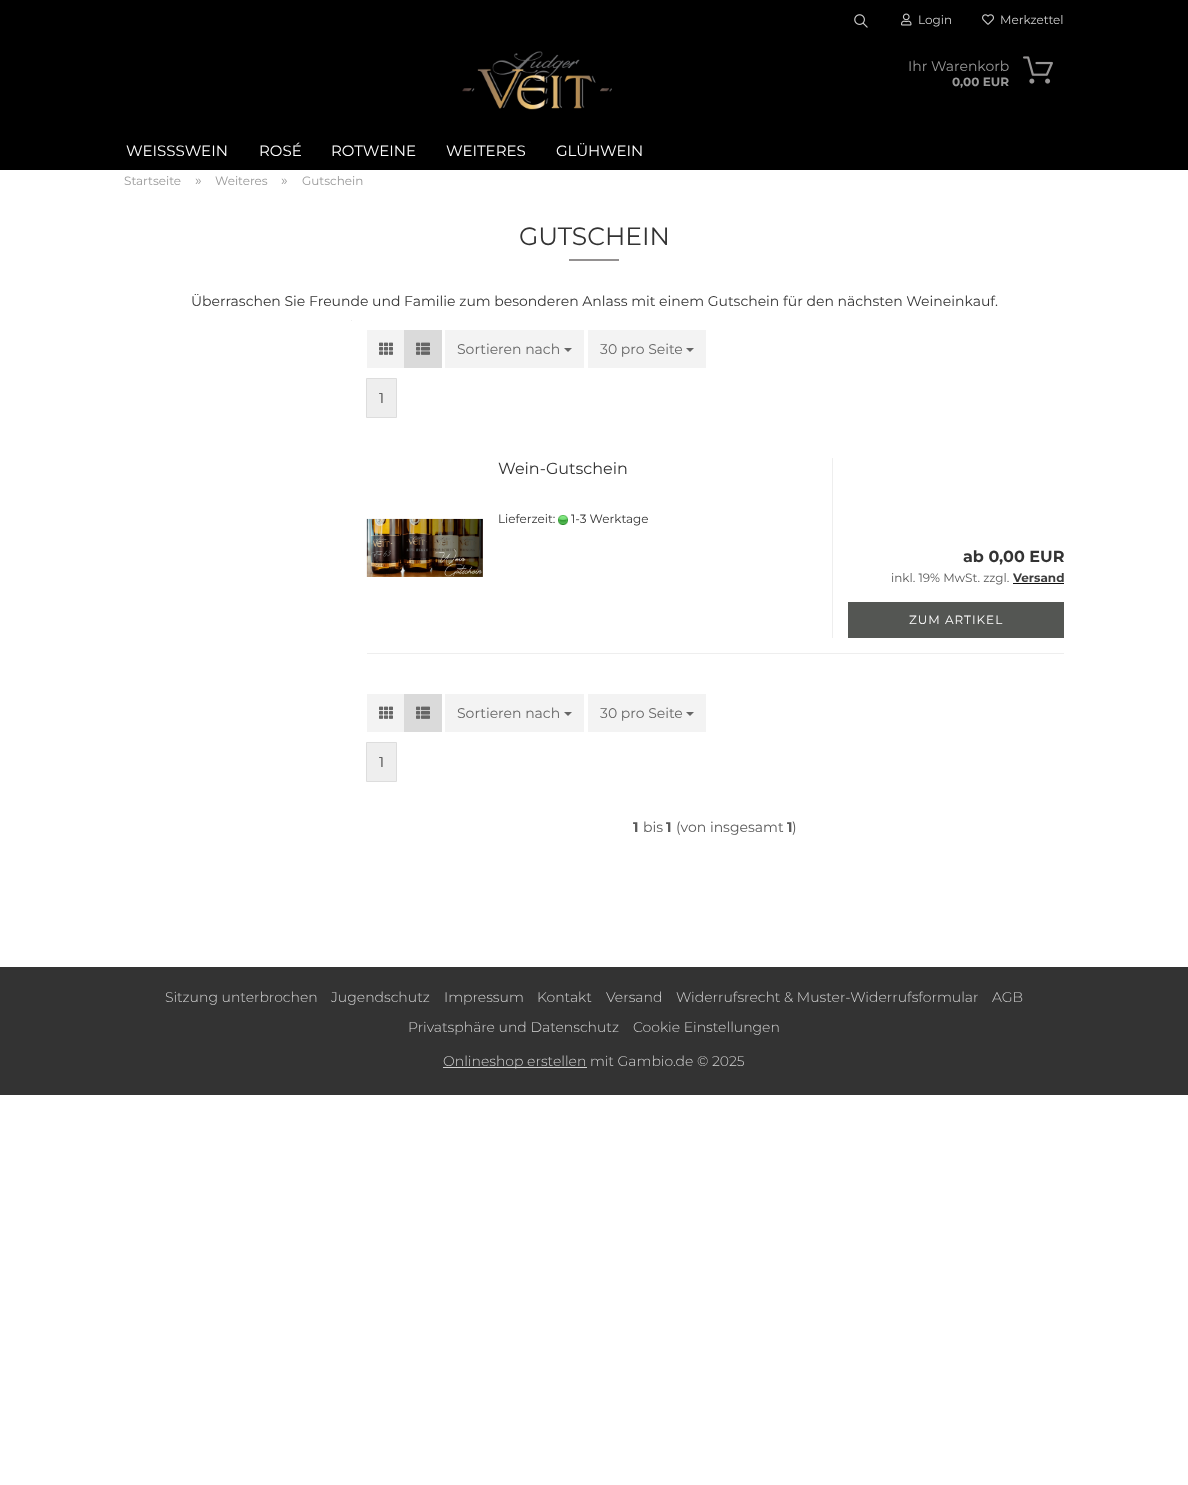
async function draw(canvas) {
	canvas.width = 1188;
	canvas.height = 1485;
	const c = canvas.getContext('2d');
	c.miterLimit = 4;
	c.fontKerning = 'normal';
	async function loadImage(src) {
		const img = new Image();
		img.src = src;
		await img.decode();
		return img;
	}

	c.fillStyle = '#fff';
	c.fillRect(0, 0, 1188, 1485);
	c.fillStyle = '#000';
	c.fillRect(0, 0, 1188, 170);
	c.drawImage(await loadImage('img1.png'), 854, 14, 14, 14);
	c.drawImage(await loadImage('img2.png'), 901, 13, 11, 13);
	c.font = '100 12px "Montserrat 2"';
	c.fillStyle = '#ccc';
	c.fillText('Login', 918, 24);
	c.drawImage(await loadImage('img3.png'), 982, 14, 12, 11);
	c.fillText('Merkzettel', 1000, 24);
	c.drawImage(await loadImage('img4.png'), 462, 51, 150, 59);
	c.font = '100 14px "Montserrat 2"';
	c.fillStyle = '#999';
	c.fillText('Ihr Warenkorb', 908, 71);
	c.font = '100 12px "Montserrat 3"';
	c.fillText('0,00 EUR', 952, 86);
	c.drawImage(await loadImage('img5.png'), 1023, 56, 30, 28);
	c.font = '100 15px "Montserrat 2"';
	c.fillStyle = '#fff';
	for (const [text, x, y] of [
		['WEISSSWEIN', 126, 156],
		['ROSÉ', 259, 156],
		['ROTWEINE', 331, 156],
		['WEITERES', 446, 156],
		['GLÜHWEIN', 556, 156],
	]) {
		c.fillText(text, x, y);
	}
	c.font = '100 12px "Montserrat 2"';
	c.fillStyle = '#999';
	c.fillText('Startseite', 124, 185);
	c.font = '100 14px "Montserrat 2"';
	c.fillText('»', 195, 185);
	c.font = '100 12px "Montserrat 2"';
	c.fillText('Weiteres', 215, 185);
	c.font = '100 14px "Montserrat 2"';
	c.fillText('»', 281, 185);
	c.font = '100 12px "Montserrat 2"';
	c.fillText('Gutschein', 302, 185);
	c.font = '100 25px "Montserrat 2"';
	c.fillStyle = '#333';
	c.fillText('GUTSCHEIN', 519, 245);
	c.fillStyle = '#949191';
	c.fillRect(569, 259, 50, 2);
	c.font = '100 14px "Montserrat 2"';
	c.fillStyle = '#333';
	c.fillText('Überraschen Sie Freunde und Familie zum besonderen Anlass mit einem Gutschein für den nächsten Weineinkauf.', 191, 306);
	c.fillStyle = '#eee';
	c.fillRect(351, 320, 1, 1);
	c.fillStyle = '#f3f3f3';
	c.fillRect(367, 330, 37, 38);
	c.drawImage(await loadImage('img6.png'), 379, 342, 14, 13);
	c.fillStyle = '#dadada';
	c.fillRect(404, 330, 38, 38);
	c.drawImage(await loadImage('img7.png'), 416, 342, 14, 13);
	c.fillStyle = '#f3f3f3';
	c.fillRect(445, 330, 139, 38);
	c.fillStyle = '#666';
	c.fillText('Sortieren nach', 457, 354);
	c.beginPath();
	c.moveTo(564, 348);
	c.lineTo(572, 348);
	c.lineTo(568, 352);
	c.closePath();
	c.fill();
	c.fillStyle = '#f3f3f3';
	c.fillRect(588, 330, 118, 38);
	c.fillStyle = '#666';
	c.fillText('30 pro Seite', 600, 354);
	c.beginPath();
	c.moveTo(686, 348);
	c.lineTo(694, 348);
	c.lineTo(690, 352);
	c.closePath();
	c.fill();
	c.fillStyle = '#eee';
	c.beginPath();
	c.rect(366.5, 378.5, 30, 39);
	c.fill();
	c.strokeStyle = '#ddd';
	c.stroke();
	c.fillStyle = '#333';
	c.fillText('1', 379, 403);
	c.fillStyle = '#eee';
	c.fillRect(367, 653, 697, 1);
	c.font = '100 16px "Montserrat 2"';
	c.fillStyle = '#333';
	c.fillText('Wein-Gutschein', 498, 474);
	c.font = '100 12px "Montserrat 2"';
	c.fillText('Lieferzeit:', 498, 523);
	c.drawImage(await loadImage('img8.png'), 558, 515, 10, 10);
	c.fillText('1-3 Werktage', 571, 523);
	c.drawImage(await loadImage('img9.png'), 366, 518, 117, 59);
	c.fillStyle = '#eee';
	c.fillRect(832, 458, 1, 180);
	c.font = '100 16px "Montserrat 3"';
	c.fillStyle = '#333';
	c.fillText('ab 0,00 EUR', 963, 562);
	c.font = '100 12px "Montserrat 2"';
	c.fillStyle = '#595959';
	c.fillText('inkl. 19% MwSt. zzgl.', 891, 582);
	c.font = '100 12px "Montserrat 3"';
	c.fillStyle = '#3d3d3d';
	c.fillText('Versand', 1013, 582);
	c.fillStyle = '#0f0f0f';
	c.fillRect(1013, 583, 51, 1);
	c.fillStyle = '#545653';
	c.fillRect(848, 602, 216, 36);
	c.letterSpacing = '1px';
	c.font = '100 12px "Montserrat 2"';
	c.fillStyle = '#fff';
	c.fillText('ZUM ARTIKEL', 909, 624);
	c.fillStyle = '#f3f3f3';
	c.fillRect(367, 694, 37, 38);
	c.drawImage(await loadImage('img6.png'), 379, 706, 14, 13);
	c.fillStyle = '#dadada';
	c.fillRect(404, 694, 38, 38);
	c.drawImage(await loadImage('img7.png'), 416, 706, 14, 13);
	c.fillStyle = '#f3f3f3';
	c.fillRect(445, 694, 139, 38);
	c.letterSpacing = '0px';
	c.font = '100 14px "Montserrat 2"';
	c.fillStyle = '#666';
	c.fillText('Sortieren nach', 457, 718);
	c.beginPath();
	c.moveTo(564, 712);
	c.lineTo(572, 712);
	c.lineTo(568, 716);
	c.closePath();
	c.fill();
	c.fillStyle = '#f3f3f3';
	c.fillRect(588, 694, 118, 38);
	c.fillStyle = '#666';
	c.fillText('30 pro Seite', 600, 718);
	c.beginPath();
	c.moveTo(686, 712);
	c.lineTo(694, 712);
	c.lineTo(690, 716);
	c.closePath();
	c.fill();
	c.fillStyle = '#eee';
	c.beginPath();
	c.rect(366.5, 742.5, 30, 39);
	c.fill();
	c.stroke();
	c.fillStyle = '#333';
	c.fillText('1', 379, 767);
	c.font = '100 14px "Montserrat 3"';
	c.fillStyle = '#595959';
	c.fillText('1', 633, 832);
	c.font = '100 14px "Montserrat 2"';
	c.fillText('bis', 643, 832);
	c.font = '100 14px "Montserrat 3"';
	c.fillText('1', 666, 832);
	c.font = '100 14px "Montserrat 2"';
	c.fillText('(von insgesamt', 676, 832);
	c.font = '100 14px "Montserrat 3"';
	c.fillText('1', 787, 832);
	c.font = '100 14px "Montserrat 2"';
	c.fillText(')', 792, 832);
	c.fillStyle = '#333';
	c.fillRect(0, 967, 1188, 128);
	c.font = '100 14px Montserrat';
	c.fillStyle = '#d2d2d2';
	for (const [text, x, y] of [
		['Sitzung unterbrochen', 165, 1002],
		['Jugendschutz', 331, 1002],
		['Impressum', 444, 1002],
		['Kontakt', 537, 1002],
		['Versand', 606, 1002],
		['Widerrufsrecht & Muster-Widerrufsformular', 676, 1002],
		['AGB', 992, 1002],
		['Privatsphäre und Datenschutz', 408, 1032],
		['Cookie Einstellungen', 633, 1032],
	]) {
		c.fillText(text, x, y);
	}
	c.fillRect(443, 1067, 144, 1);
	c.fillText('Onlineshop erstellen mit Gambio.de © 2025', 443, 1066);
}

draw(document.querySelector('canvas'));
